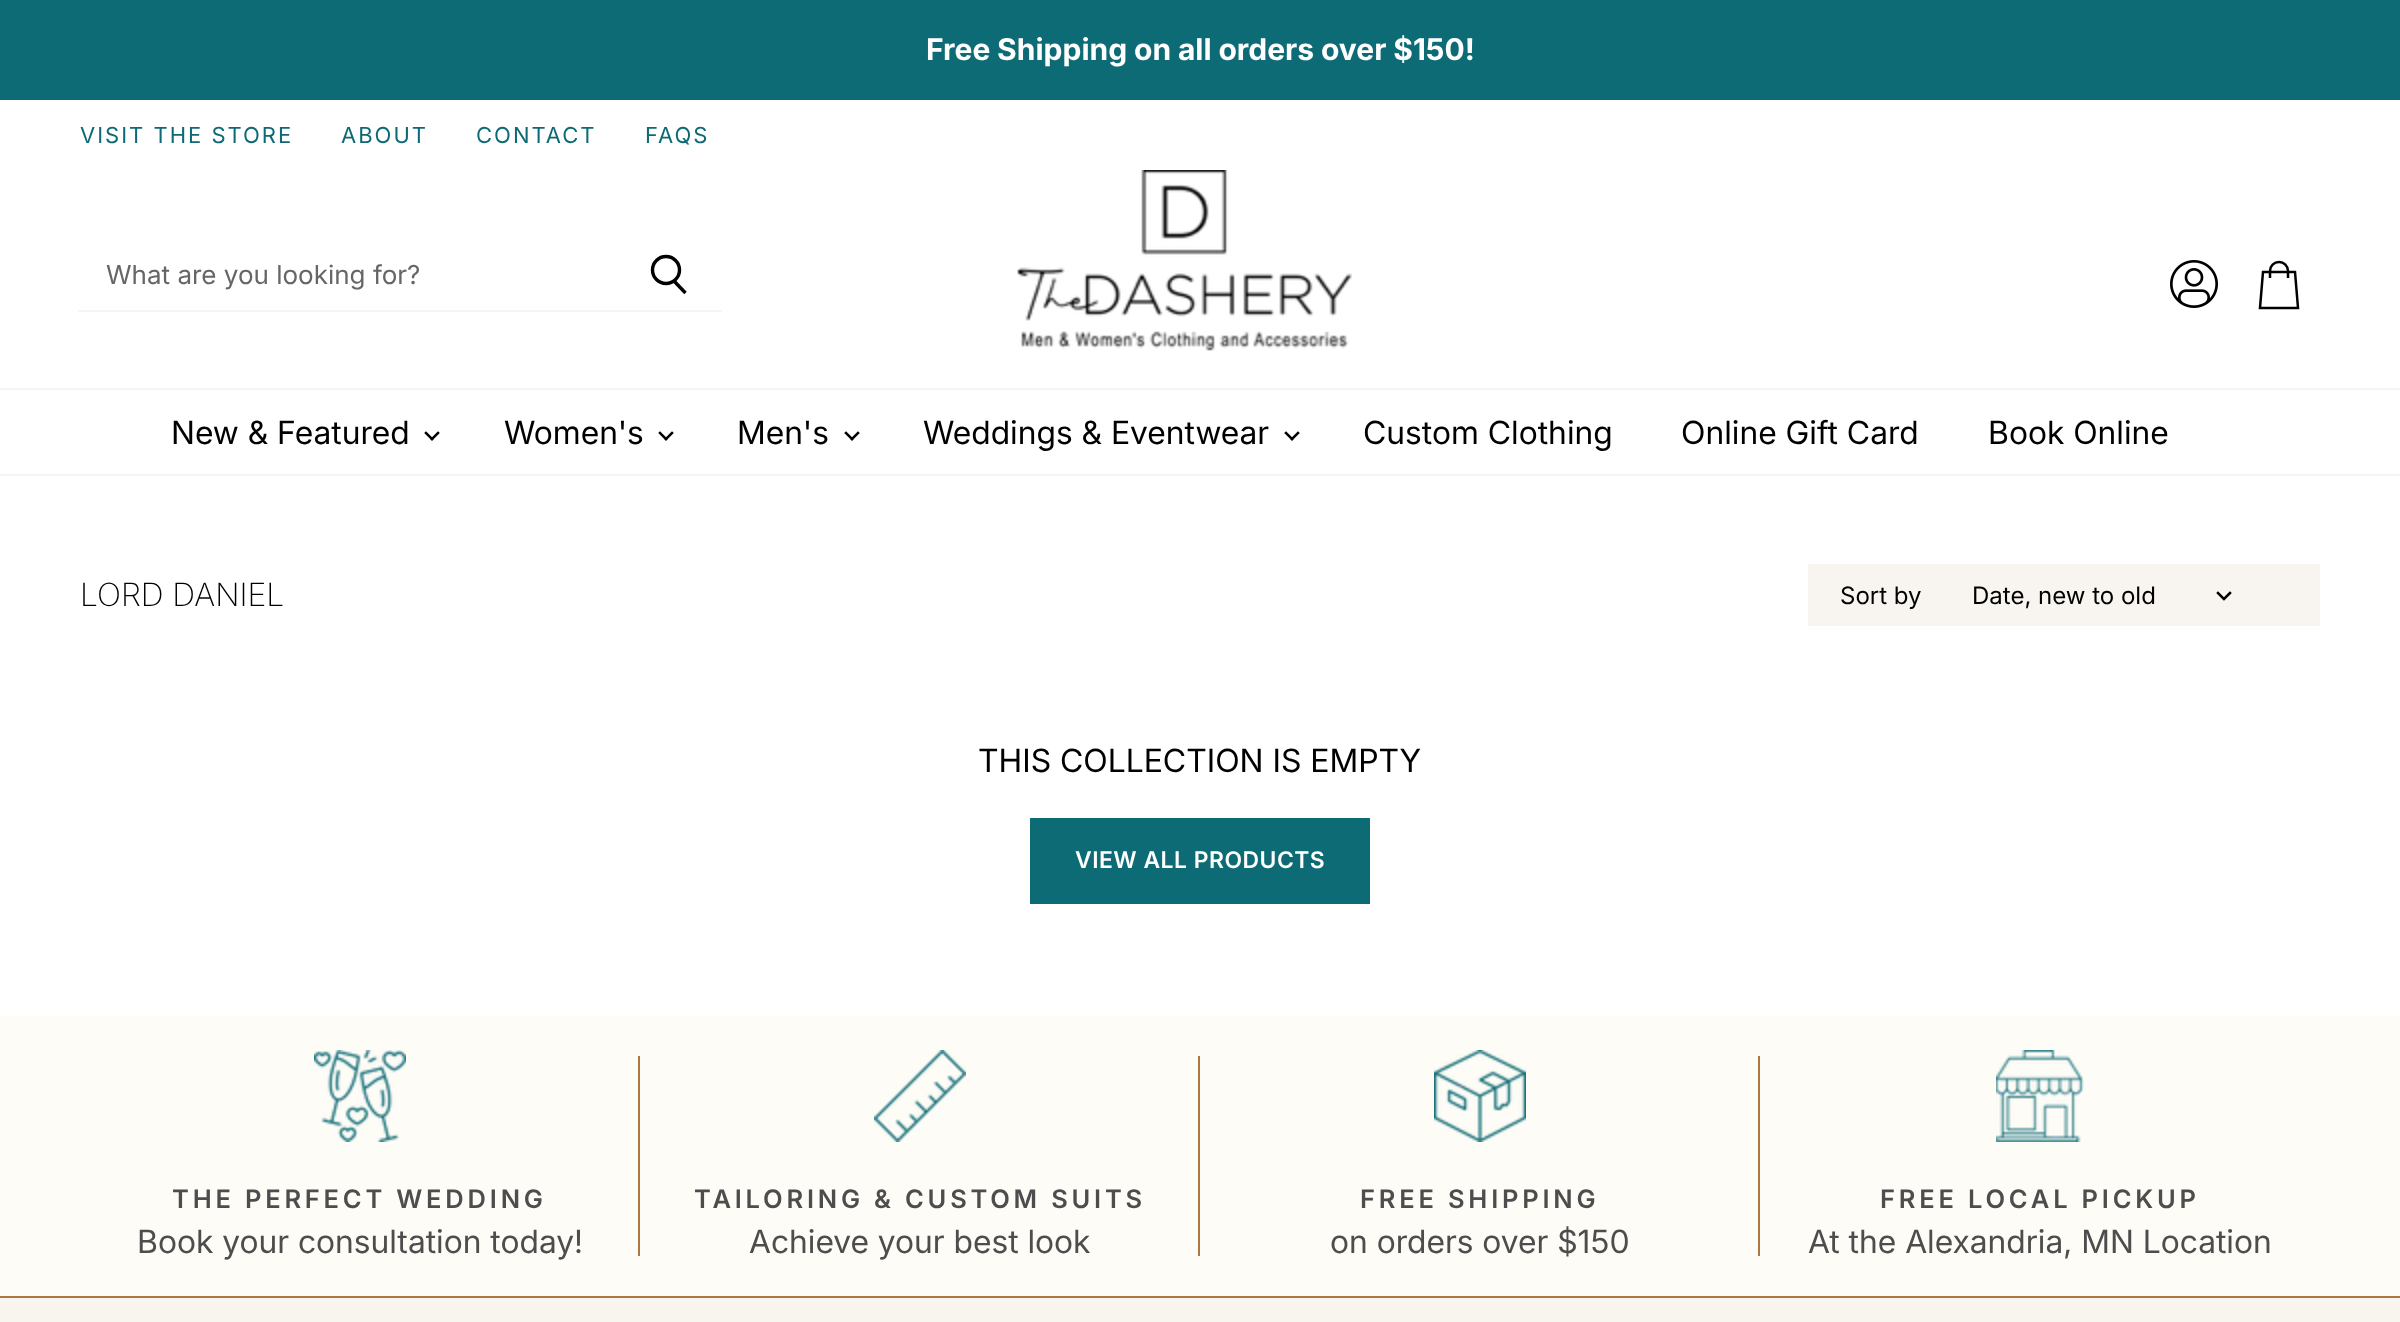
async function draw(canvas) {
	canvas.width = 2400;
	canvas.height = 1322;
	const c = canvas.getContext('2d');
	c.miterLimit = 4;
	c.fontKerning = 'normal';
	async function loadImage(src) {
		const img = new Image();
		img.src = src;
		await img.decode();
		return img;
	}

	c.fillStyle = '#fff';
	c.fillRect(0, 0, 2400, 1322);
	c.fillStyle = '#0d6b75';
	c.fillRect(0, 0, 2400, 100);
	c.wordSpacing = '-0.25px';
	c.font = 'bold 30px Inter';
	c.fillStyle = '#fff';
	c.fillText('Free Shipping on all orders over $150!', 926, 60);
	c.letterSpacing = '2px';
	c.wordSpacing = '0px';
	c.font = '22px "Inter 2"';
	c.fillStyle = '#0d6a74';
	for (const [text, x, y] of [
		['VISIT THE STORE', 80, 143],
		['ABOUT', 341, 143],
		['CONTACT', 476, 143],
		['FAQS', 645, 143],
	]) {
		c.fillText(text, x, y);
	}
	c.fillStyle = '#f8f4ef';
	c.fillRect(0, 474, 2400, 2);
	c.fillRect(78, 310, 644, 2);
	c.beginPath();
	c.moveTo(685.5, 293);
	c.lineTo(674, 281);
	c.strokeStyle = '#000';
	c.lineWidth = 3.4;
	c.stroke();
	c.beginPath();
	c.arc(666, 270, 13.5, 0, 2 * Math.PI);
	c.stroke();
	c.letterSpacing = '0px';
	c.font = '26px "Inter 2"';
	c.fillStyle = '#666';
	c.fillText('What are you looking for?', 106, 284);
	c.drawImage(await loadImage('img1.png'), 1017, 170, 335, 181);
	c.drawImage(await loadImage('img2.png'), 2170, 260, 48, 48);
	c.beginPath();
	c.moveTo(2298, 308);
	c.lineTo(2260, 308);
	c.lineTo(2263, 272);
	c.lineTo(2295, 272);
	c.closePath();
	c.moveTo(2288, 278);
	c.lineTo(2288, 271);
	c.bezierCurveTo(2288, 266, 2284, 262, 2279, 262);
	c.bezierCurveTo(2274, 262, 2270, 266, 2270, 271);
	c.lineTo(2270, 278);
	c.lineWidth = 2.5;
	c.stroke();
	c.fillStyle = '#f8f4ef';
	c.fillRect(0, 388, 2400, 2);
	c.font = '32px Inter';
	c.fillStyle = '#000';
	c.fillText('New & Featured', 171, 444);
	c.drawImage(await loadImage('img3.png'), 424, 431, 16, 10);
	c.fillText('Women\'s', 504, 444);
	c.drawImage(await loadImage('img3.png'), 658, 431, 16, 10);
	c.fillText('Men\'s', 737, 444);
	c.drawImage(await loadImage('img3.png'), 844, 431, 16, 10);
	c.fillText('Weddings & Eventwear', 923, 444);
	c.drawImage(await loadImage('img3.png'), 1284, 431, 16, 10);
	for (const [text, x, y] of [
		['Custom Clothing', 1363, 444],
		['Online Gift Card', 1681, 444],
		['Book Online', 1988, 444],
	]) {
		c.fillText(text, x, y);
	}
	c.font = '200 32px Inter';
	c.fillText('LORD DANIEL', 80, 606);
	c.fillStyle = '#f8f4ef';
	c.fillRect(1808, 564, 512, 62);
	c.font = '24px "Inter 2"';
	c.fillStyle = '#000';
	c.fillText('Sort by', 1840, 604);
	c.fillText('Date, new to old', 1972, 604);
	c.beginPath();
	c.moveTo(2224, 599);
	c.lineTo(2230, 593);
	c.moveTo(2224, 599);
	c.lineTo(2218, 593);
	c.lineCap = 'square';
	c.stroke();
	c.font = '32px Inter';
	c.fillText('THIS COLLECTION IS EMPTY', 978, 772);
	c.fillStyle = '#0d6b75';
	c.fillRect(1030, 818, 340, 86);
	c.letterSpacing = '0.5px';
	c.font = '600 22.9px Inter';
	c.fillStyle = '#fff';
	c.fillText('VIEW ALL PRODUCTS', 1075, 868);
	c.fillStyle = '#fdfcf7';
	c.fillRect(0, 1016, 2400, 280);
	c.drawImage(await loadImage('img4.png'), 314, 1050, 92, 92);
	c.fillStyle = '#ad7743';
	c.fillRect(638, 1056, 2, 200);
	c.letterSpacing = '3.8px';
	c.font = '600 25.5px Inter';
	c.fillStyle = '#4d4d4d';
	c.fillText('THE PERFECT WEDDING', 172, 1208);
	c.letterSpacing = '0px';
	c.font = '32px Inter';
	c.fillText('Book your consultation today!', 137, 1253);
	c.drawImage(await loadImage('img5.png'), 874, 1050, 92, 92);
	c.fillStyle = '#ad7743';
	c.fillRect(1198, 1056, 2, 200);
	c.letterSpacing = '3.8px';
	c.font = '600 25.5px Inter';
	c.fillStyle = '#4d4d4d';
	c.fillText('TAILORING & CUSTOM SUITS', 694, 1208);
	c.letterSpacing = '0px';
	c.font = '32px Inter';
	c.fillText('Achieve your best look', 749, 1253);
	c.drawImage(await loadImage('img6.png'), 1434, 1050, 92, 92);
	c.fillStyle = '#ad7743';
	c.fillRect(1758, 1056, 2, 200);
	c.letterSpacing = '3.8px';
	c.font = '600 25.5px Inter';
	c.fillStyle = '#4d4d4d';
	c.fillText('FREE SHIPPING', 1360, 1208);
	c.letterSpacing = '0px';
	c.font = '32px Inter';
	c.fillText('on orders over $150', 1330, 1253);
	c.drawImage(await loadImage('img7.png'), 1996, 1050, 88, 92);
	c.letterSpacing = '3.8px';
	c.font = '600 25.5px Inter';
	c.fillText('FREE LOCAL PICKUP', 1880, 1208);
	c.letterSpacing = '0px';
	c.font = '32px Inter';
	c.fillText('At the Alexandria, MN Location', 1808, 1253);
	c.fillStyle = '#f8f5ef';
	c.fillRect(0, 1298, 2400, 24);
	c.fillStyle = '#ad7743';
	c.fillRect(0, 1296, 2400, 2);
}

draw(document.querySelector('canvas'));
